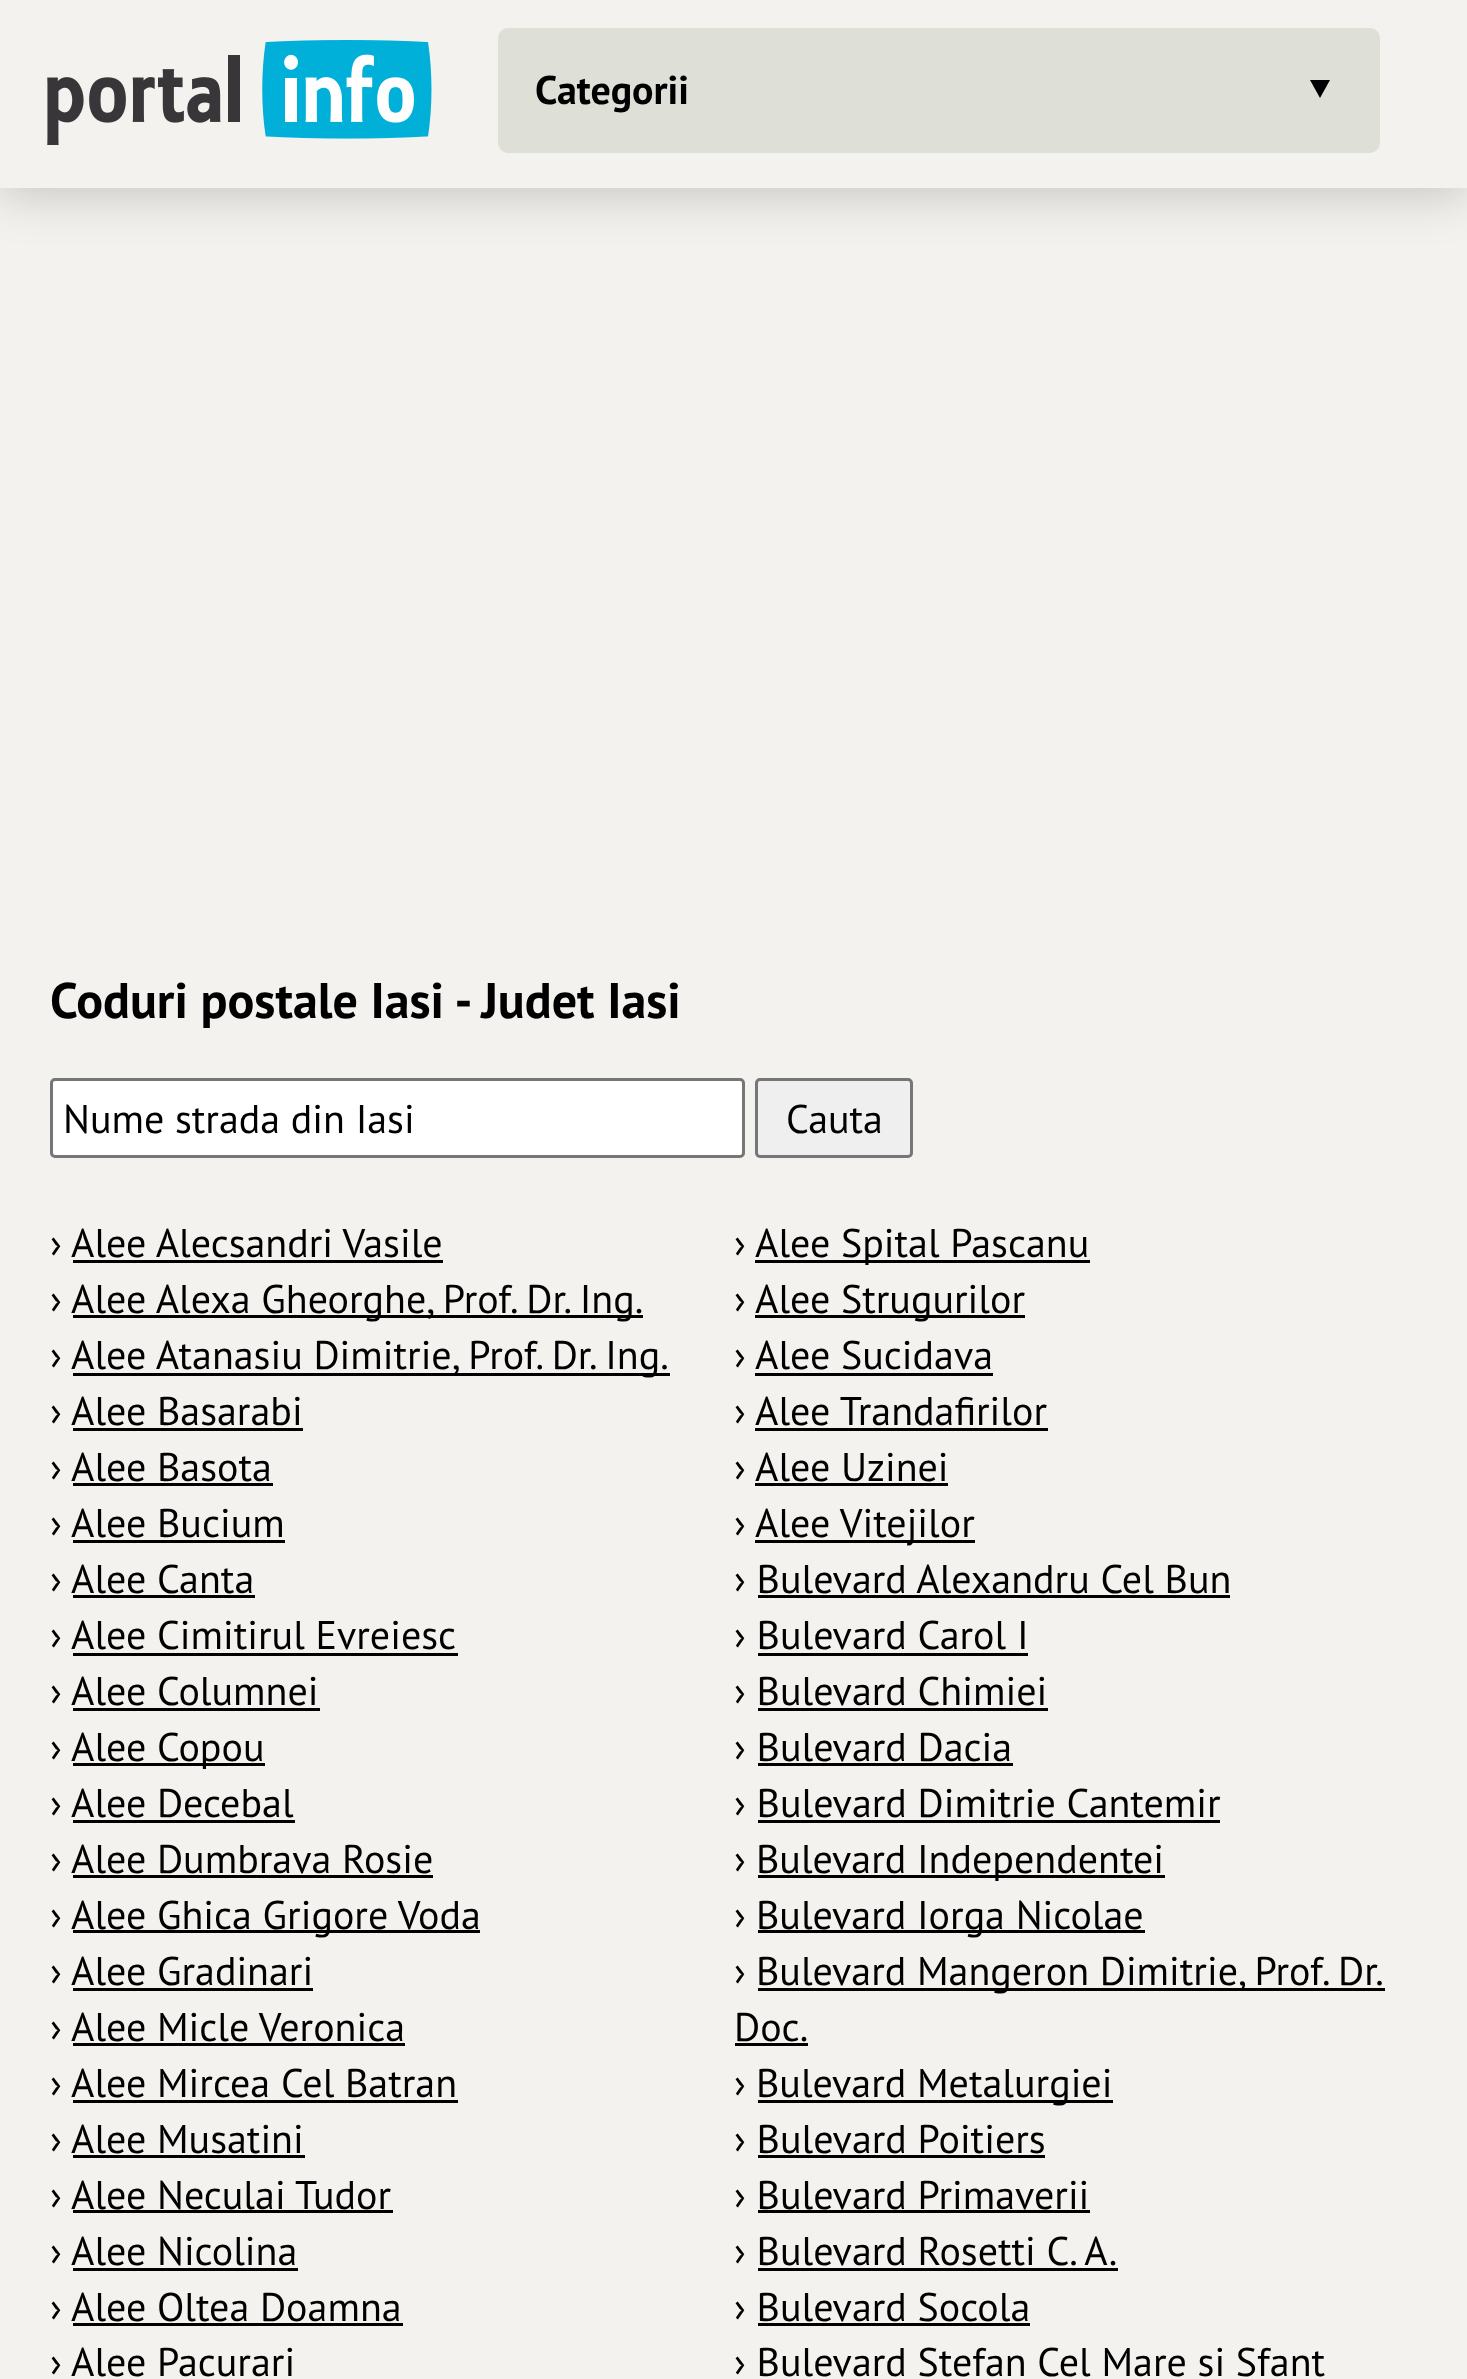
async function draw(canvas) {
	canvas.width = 1467;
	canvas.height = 2379;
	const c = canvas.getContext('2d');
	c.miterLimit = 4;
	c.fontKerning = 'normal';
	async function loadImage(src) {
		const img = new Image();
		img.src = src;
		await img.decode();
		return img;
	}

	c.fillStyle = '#f3f2ee';
	c.fillRect(0, 0, 1467, 2379);
	c.fillStyle = '#00000033';
	c.filter = 'blur(25px)';
	c.beginPath();
	c.rect(0, 5, 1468, 188);
	c.fill();
	c.filter = 'none';
	c.fillStyle = '#f3f2ee';
	c.fillRect(0, 0, 1467, 188);
	c.drawImage(await loadImage('img1.png'), 47, 40, 385, 105);
	c.fillStyle = '#dedfd6';
	c.beginPath();
	c.roundRect(498, 28, 882, 125, 10);
	c.fill();
	c.fillStyle = '#000';
	c.beginPath();
	c.moveTo(1310, 80);
	c.lineTo(1330, 80);
	c.lineTo(1320, 98);
	c.closePath();
	c.fill();
	c.font = 'bold 40px PT Sans';
	c.fillText('Categorii', 535, 104);
	c.font = 'bold 50px PT Sans';
	c.fillText('Coduri postale Iasi - Judet Iasi', 50, 1018);
	c.fillStyle = '#fff';
	c.beginPath();
	c.roundRect(51.5, 1079.5, 692, 77, 3.5);
	c.fill();
	c.strokeStyle = '#767676';
	c.lineWidth = 3;
	c.stroke();
	c.font = '40px PT Sans';
	c.fillStyle = '#000';
	c.fillText('Nume strada din Iasi', 63, 1133);
	c.fillStyle = '#efefef';
	c.beginPath();
	c.roundRect(756.5, 1079.5, 155, 77, 3.5);
	c.fill();
	c.stroke();
	c.fillStyle = '#000';
	for (const [text, x, y] of [
		['Cauta', 786, 1133],
		['›', 50, 1257],
		['Alee Alecsandri Vasile', 71, 1257],
	]) {
		c.fillText(text, x, y);
	}
	c.fillRect(73, 1260, 370, 3);
	c.fillText('›', 50, 1313);
	c.fillRect(73, 1315, 570, 3);
	c.fillText('Alee Alexa Gheorghe, Prof. Dr. Ing.', 71, 1313);
	c.fillText('›', 50, 1369);
	c.fillRect(73, 1373, 597, 3);
	for (const [text, x, y] of [
		['Alee Atanasiu Dimitrie, Prof. Dr. Ing.', 71, 1369],
		['›', 50, 1425],
		['Alee Basarabi', 71, 1425],
	]) {
		c.fillText(text, x, y);
	}
	c.fillRect(73, 1428, 230, 3);
	c.fillText('›', 50, 1481);
	c.fillText('Alee Basota', 71, 1481);
	c.fillRect(73, 1483, 200, 3);
	c.fillText('›', 50, 1537);
	c.fillText('Alee Bucium', 71, 1537);
	c.fillRect(73, 1540, 212, 3);
	c.fillText('›', 50, 1593);
	c.fillText('Alee Canta', 71, 1593);
	c.fillRect(73, 1595, 182, 3);
	c.fillText('›', 50, 1649);
	c.fillText('Alee Cimitirul Evreiesc', 71, 1649);
	c.fillRect(73, 1653, 385, 3);
	c.fillText('›', 50, 1705);
	c.fillText('Alee Columnei', 71, 1705);
	c.fillRect(73, 1708, 247, 3);
	c.fillText('›', 50, 1761);
	c.fillRect(73, 1763, 192, 3);
	for (const [text, x, y] of [
		['Alee Copou', 71, 1761],
		['›', 50, 1817],
		['Alee Decebal', 71, 1817],
	]) {
		c.fillText(text, x, y);
	}
	c.fillRect(73, 1820, 222, 3);
	c.fillText('›', 50, 1873);
	c.fillText('Alee Dumbrava Rosie', 71, 1873);
	c.fillRect(73, 1875, 360, 3);
	c.fillText('›', 50, 1929);
	c.fillRect(73, 1930, 407, 3);
	for (const [text, x, y] of [
		['Alee Ghica Grigore Voda', 71, 1929],
		['›', 50, 1985],
		['Alee Gradinari', 71, 1985],
	]) {
		c.fillText(text, x, y);
	}
	c.fillRect(73, 1988, 240, 3);
	c.fillText('›', 50, 2041);
	c.fillText('Alee Micle Veronica', 71, 2041);
	c.fillRect(73, 2043, 332, 3);
	c.fillText('›', 50, 2097);
	c.fillText('Alee Mircea Cel Batran', 71, 2097);
	c.fillRect(73, 2100, 385, 3);
	c.fillText('›', 50, 2153);
	c.fillText('Alee Musatini', 71, 2153);
	c.fillRect(73, 2155, 232, 3);
	c.fillText('›', 50, 2209);
	c.fillText('Alee Neculai Tudor', 71, 2209);
	c.fillRect(73, 2210, 320, 3);
	c.fillText('›', 50, 2265);
	c.fillText('Alee Nicolina', 71, 2265);
	c.fillRect(73, 2268, 225, 3);
	c.fillText('›', 50, 2321);
	c.fillText('Alee Oltea Doamna', 71, 2321);
	c.fillRect(73, 2323, 330, 3);
	for (const [text, x, y] of [
		['›', 50, 2376],
		['Alee Pacurari', 71, 2376],
		['›', 734, 1257],
	]) {
		c.fillText(text, x, y);
	}
	c.fillRect(755, 1260, 335, 3);
	c.fillText('Alee Spital Pascanu', 755, 1257);
	c.fillText('›', 734, 1313);
	c.fillRect(755, 1315, 270, 3);
	for (const [text, x, y] of [
		['Alee Strugurilor', 755, 1313],
		['›', 734, 1369],
		['Alee Sucidava', 755, 1369],
	]) {
		c.fillText(text, x, y);
	}
	c.fillRect(755, 1373, 238, 3);
	c.fillText('›', 734, 1425);
	c.fillText('Alee Trandafirilor', 755, 1425);
	c.fillRect(755, 1428, 293, 3);
	c.fillText('›', 734, 1481);
	c.fillText('Alee Uzinei', 755, 1481);
	c.fillRect(755, 1483, 193, 3);
	c.fillText('›', 734, 1537);
	c.fillRect(755, 1540, 220, 3);
	c.fillText('Alee Vitejilor', 755, 1537);
	c.fillText('› Bulevard Alexandru Cel Bun', 734, 1593);
	c.fillRect(758, 1595, 472, 3);
	c.fillText('› Bulevard Carol I', 734, 1649);
	c.fillRect(758, 1653, 270, 3);
	c.fillText('› Bulevard Chimiei', 734, 1705);
	c.fillRect(758, 1708, 290, 3);
	c.fillText('› Bulevard Dacia', 734, 1761);
	c.fillRect(758, 1763, 255, 3);
	c.fillText('› Bulevard Dimitrie Cantemir', 734, 1817);
	c.fillRect(758, 1820, 462, 3);
	c.fillText('›', 734, 1873);
	c.fillRect(758, 1875, 407, 3);
	c.fillText('Bulevard Independentei', 756, 1873);
	c.fillText('›', 734, 1929);
	c.fillRect(758, 1930, 387, 3);
	c.fillText('Bulevard Iorga Nicolae', 756, 1929);
	c.fillText('›', 734, 1985);
	c.fillRect(758, 1988, 627, 3);
	c.fillText('Bulevard Mangeron Dimitrie, Prof. Dr.', 756, 1985);
	c.fillText('Doc.', 734, 2041);
	c.fillRect(735, 2043, 73, 3);
	c.fillText('›', 734, 2097);
	c.fillRect(758, 2100, 355, 3);
	c.fillText('Bulevard Metalurgiei', 756, 2097);
	c.fillText('› Bulevard Poitiers', 734, 2153);
	c.fillRect(758, 2155, 287, 3);
	c.fillText('› Bulevard Primaverii', 734, 2209);
	c.fillRect(758, 2210, 332, 3);
	c.fillText('› Bulevard Rosetti C. A.', 734, 2265);
	c.fillRect(758, 2268, 360, 3);
	c.fillText('› Bulevard Socola', 734, 2321);
	c.fillRect(758, 2323, 272, 3);
	c.fillText('› Bulevard Stefan Cel Mare si Sfant', 734, 2376);
}

draw(document.querySelector('canvas'));
